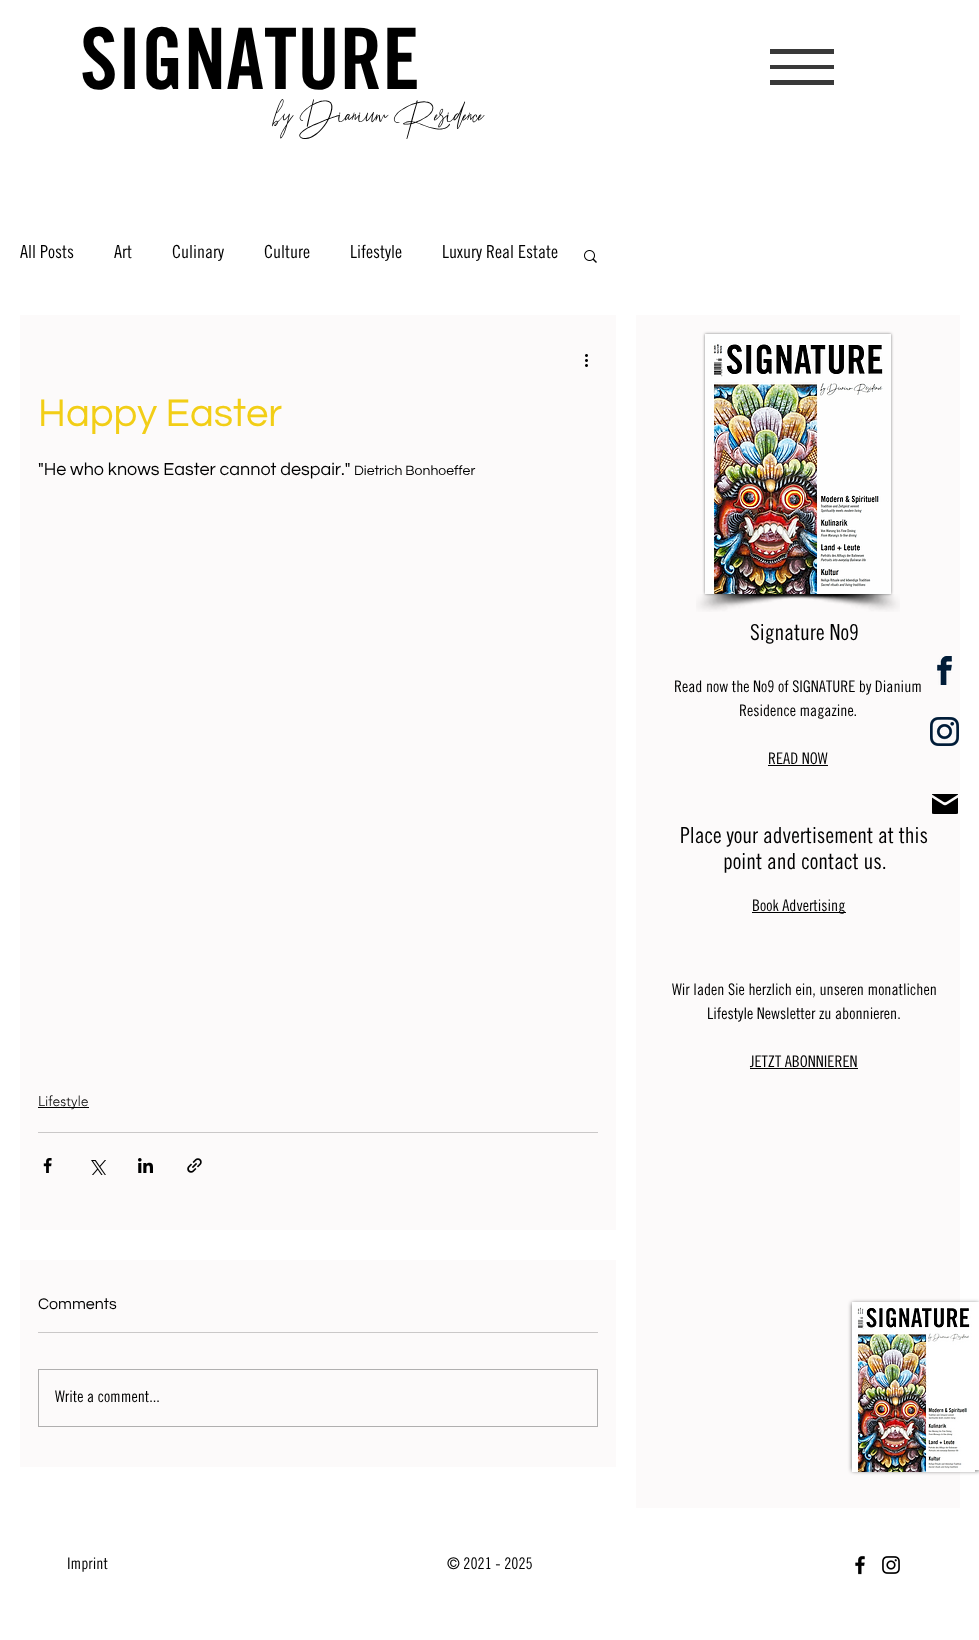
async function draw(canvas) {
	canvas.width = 979;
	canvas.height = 1640;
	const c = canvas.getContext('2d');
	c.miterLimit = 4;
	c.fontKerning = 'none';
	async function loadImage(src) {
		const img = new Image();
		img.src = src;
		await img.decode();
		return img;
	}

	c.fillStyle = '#fff';
	c.fillRect(0, 0, 979, 1640);
	c.font = 'bold 85px "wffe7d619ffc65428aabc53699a"';
	c.fillStyle = '#000';
	c.fillText('SIGNATURE', 80, 89);
	c.wordSpacing = '2px';
	c.font = '32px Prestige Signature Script';
	c.fillText('by Dianium Residence', 275, 120);
	for (const [x, y, w, h, color] of [
		[770, 80, 64, 5, '#393939'],
		[770, 49, 64, 5, '#393939'],
		[770, 65, 64, 4, '#393939'],
	]) {
		c.fillStyle = color;
		c.fillRect(x, y, w, h);
	}
	c.wordSpacing = '0px';
	c.font = '18px Trade Gothic';
	c.fillStyle = '#000';
	for (const [text, x, y] of [
		['All Posts', 20, 258],
		['Art', 114, 258],
		['Culinary', 172, 258],
		['Culture', 264, 258],
		['Lifestyle', 350, 258],
		['Luxury Real Estate', 442, 258],
	]) {
		c.fillText(text, x, y);
	}
	c.drawImage(await loadImage('img1.png'), 584, 250, 13, 13);
	c.fillStyle = '#fcfafa';
	c.fillRect(20, 315, 596, 915);
	c.drawImage(await loadImage('img2.png'), 585, 354, 3, 13);
	c.font = '40px Questrial';
	c.fillStyle = '#f2ce16';
	c.fillText('Happy Easter', 38, 426);
	c.font = '18px Questrial';
	c.fillStyle = '#000';
	c.fillText('"He who knows Easter cannot despair."', 38, 475);
	c.font = '14px Questrial';
	c.fillText('Dietrich Bonhoeffer', 354, 475);
	c.fillRect(38, 1107, 51, 1);
	c.font = '300 14px "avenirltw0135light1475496"';
	c.fillText('Lifestyle', 38, 1106);
	c.fillStyle = '#cac8c8';
	c.fillRect(38, 1132, 560, 1);
	c.drawImage(await loadImage('img3.png'), 43, 1158, 9, 15);
	c.drawImage(await loadImage('img4.png'), 91, 1160, 15, 15);
	c.drawImage(await loadImage('img5.png'), 138, 1158, 15, 15);
	c.drawImage(await loadImage('img6.png'), 187, 1158, 15, 15);
	c.fillStyle = '#fcfafa';
	c.fillRect(20, 1260, 596, 207);
	c.font = '16px Questrial';
	c.fillStyle = '#000';
	c.fillText('Comments', 38, 1309);
	c.fillStyle = '#cac8c8';
	c.fillRect(38, 1332, 560, 1);
	c.strokeStyle = '#b0afaf';
	c.strokeRect(38.5, 1369.5, 559, 57);
	c.font = '16px Trade Gothic';
	c.fillStyle = '#000';
	c.fillText('Write a comment...', 55, 1402);
	c.fillStyle = '#fcfafa';
	c.fillRect(636, 315, 324, 1193);
	c.fillStyle = '#00000080';
	c.filter = 'blur(1.5px)';
	c.beginPath();
	c.rect(705, 334, 186, 260);
	c.fill();
	c.filter = 'none';
	c.drawImage(await loadImage('img7.png'), 705, 334, 186, 260);
	c.drawImage(await loadImage('img8.png'), 696, 594, 154, 18);
	c.drawImage(await loadImage('img9.png'), 773, 594, 127, 18);
	c.font = '22px Trade Gothic';
	c.fillStyle = '#000';
	c.fillText('Signature No9', 750, 640);
	c.font = '16px Trade Gothic';
	for (const [text, x, y] of [
		['Read now the No9 of SIGNATURE by Dianium', 674, 692],
		['Residence magazine.', 739, 716],
		['READ NOW', 768, 764],
	]) {
		c.fillText(text, x, y);
	}
	c.fillRect(768, 765, 60, 1);
	c.font = '22px Trade Gothic';
	c.fillText('Place your advertisement at this', 680, 843);
	c.fillText('point and contact us.', 723, 869);
	c.fillRect(752, 912, 94, 1);
	c.font = '16px Trade Gothic';
	for (const [text, x, y] of [
		['Book Advertising', 752, 911],
		['Wir laden Sie herzlich ein, unseren monatlichen', 672, 995],
		['Lifestyle Newsletter zu abonnieren.', 707, 1019],
		['JETZT ABONNIEREN', 750, 1067],
	]) {
		c.fillText(text, x, y);
	}
	c.fillRect(750, 1068, 108, 1);
	c.drawImage(await loadImage('img10.png'), 937, 656, 15, 29);
	c.drawImage(await loadImage('img11.png'), 930, 717, 29, 29);
	c.drawImage(await loadImage('img12.png'), 932, 794, 26, 20);
	c.save();
	c.beginPath();
	c.moveTo(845, 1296);
	c.lineTo(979, 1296);
	c.lineTo(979, 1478);
	c.lineTo(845, 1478);
	c.closePath();
	c.moveTo(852, 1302);
	c.lineTo(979, 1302);
	c.lineTo(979, 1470);
	c.lineTo(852, 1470);
	c.closePath();
	c.clip('evenodd');
	c.fillStyle = '#00000099';
	c.filter = 'blur(2px)';
	c.beginPath();
	c.rect(852, 1303, 127, 168);
	c.fill();
	c.filter = 'none';
	c.restore();
	c.drawImage(await loadImage('img13.png'), 852, 1302, 123, 170);
	c.fillText('Imprint', 67, 1569);
	c.fillText('© 2021 - 2025', 447, 1569);
	c.drawImage(await loadImage('img14.png'), 855, 1555, 10, 20);
	c.drawImage(await loadImage('img15.png'), 882, 1556, 18, 18);
}

draw(document.querySelector('canvas'));
